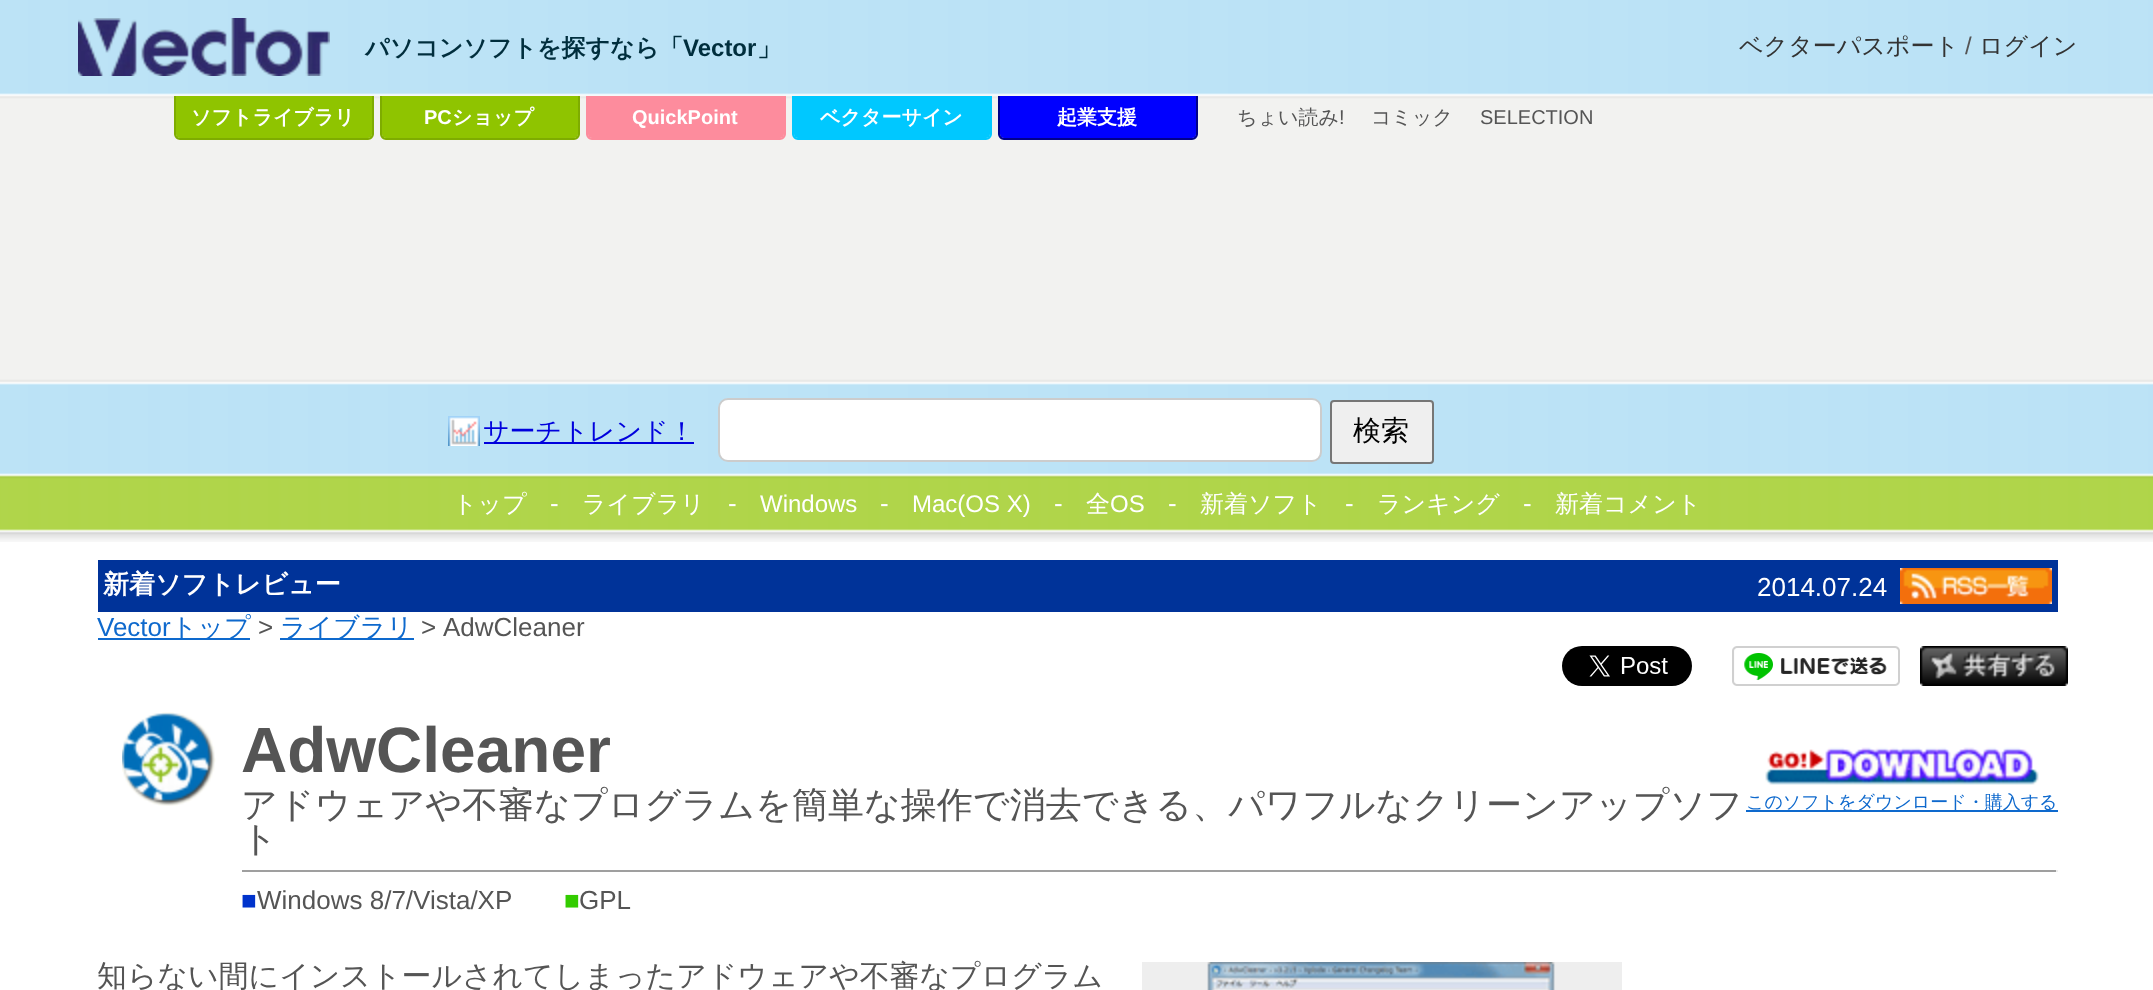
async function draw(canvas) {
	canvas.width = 2153;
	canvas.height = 990;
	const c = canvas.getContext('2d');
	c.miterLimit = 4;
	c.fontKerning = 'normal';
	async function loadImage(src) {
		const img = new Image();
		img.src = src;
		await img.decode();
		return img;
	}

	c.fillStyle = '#fff';
	c.fillRect(0, 0, 2153, 990);
	c.drawImage(await loadImage('img1.png'), 0, 0, 2153, 542);
	c.drawImage(await loadImage('img2.png'), 78, 18, 252, 58);
	c.font = '500 24px WenQuanYi Zen Hei';
	c.fillStyle = '#333';
	c.fillText('ベクターパスポート', 1739, 54);
	c.font = '24px Liberation Sans';
	c.fillStyle = '#555';
	c.fillText('/', 1965, 54);
	c.font = '500 24px WenQuanYi Zen Hei';
	c.fillStyle = '#333';
	c.fillText('ログイン', 1979, 54);
	c.font = 'bold 24px WenQuanYi Zen Hei';
	c.fillStyle = '#002e3d';
	c.fillText('パソコンソフトを探すなら「', 365, 56);
	c.font = 'bold 24px Liberation Sans';
	c.fillText('Vector', 683, 56);
	c.font = 'bold 24px WenQuanYi Zen Hei';
	c.fillText('」', 757, 56);
	c.fillStyle = '#8fc400';
	c.beginPath();
	c.roundRect(176, 96, 196, 42, [0, 0, 4, 4]);
	c.fill();
	c.fillStyle = '#7eac00';
	c.beginPath();
	c.moveTo(174, 96);
	c.lineTo(374, 96);
	c.lineTo(374, 134);
	c.bezierCurveTo(374, 137, 371, 140, 368, 140);
	c.lineTo(180, 140);
	c.bezierCurveTo(177, 140, 174, 137, 174, 134);
	c.closePath();
	c.moveTo(176, 96);
	c.lineTo(372, 96);
	c.lineTo(372, 134);
	c.bezierCurveTo(372, 136, 370, 138, 368, 138);
	c.lineTo(180, 138);
	c.bezierCurveTo(178, 138, 176, 136, 176, 134);
	c.closePath();
	c.fill('evenodd');
	c.font = 'bold 20px WenQuanYi Zen Hei';
	c.fillStyle = '#fff';
	c.fillText('ソフトライブラリ', 191, 124);
	c.fillStyle = '#8fc400';
	c.beginPath();
	c.roundRect(382, 96, 196, 42, [0, 0, 4, 4]);
	c.fill();
	c.fillStyle = '#7eac00';
	c.beginPath();
	c.moveTo(380, 96);
	c.lineTo(580, 96);
	c.lineTo(580, 134);
	c.bezierCurveTo(580, 137, 577, 140, 574, 140);
	c.lineTo(386, 140);
	c.bezierCurveTo(383, 140, 380, 137, 380, 134);
	c.closePath();
	c.moveTo(382, 96);
	c.lineTo(578, 96);
	c.lineTo(578, 134);
	c.bezierCurveTo(578, 136, 576, 138, 574, 138);
	c.lineTo(386, 138);
	c.bezierCurveTo(384, 138, 382, 136, 382, 134);
	c.closePath();
	c.fill('evenodd');
	c.font = 'bold 20px Liberation Sans';
	c.fillStyle = '#fff';
	c.fillText('PC', 424, 124);
	c.font = 'bold 20px WenQuanYi Zen Hei';
	c.fillText('ショップ', 452, 124);
	c.fillStyle = '#fd8c9d';
	c.beginPath();
	c.roundRect(588, 96, 196, 42, [0, 0, 4, 4]);
	c.fill();
	c.beginPath();
	c.moveTo(586, 96);
	c.lineTo(786, 96);
	c.lineTo(786, 134);
	c.bezierCurveTo(786, 137, 783, 140, 780, 140);
	c.lineTo(592, 140);
	c.bezierCurveTo(589, 140, 586, 137, 586, 134);
	c.closePath();
	c.moveTo(588, 96);
	c.lineTo(784, 96);
	c.lineTo(784, 134);
	c.bezierCurveTo(784, 136, 782, 138, 780, 138);
	c.lineTo(592, 138);
	c.bezierCurveTo(590, 138, 588, 136, 588, 134);
	c.closePath();
	c.fill('evenodd');
	c.font = 'bold 20px Liberation Sans';
	c.fillStyle = '#fff';
	c.fillText('QuickPoint', 632, 124);
	c.fillStyle = '#00c8ff';
	c.beginPath();
	c.roundRect(794, 96, 196, 42, [0, 0, 4, 4]);
	c.fill();
	c.beginPath();
	c.moveTo(792, 96);
	c.lineTo(992, 96);
	c.lineTo(992, 134);
	c.bezierCurveTo(992, 137, 989, 140, 986, 140);
	c.lineTo(798, 140);
	c.bezierCurveTo(795, 140, 792, 137, 792, 134);
	c.closePath();
	c.moveTo(794, 96);
	c.lineTo(990, 96);
	c.lineTo(990, 134);
	c.bezierCurveTo(990, 136, 988, 138, 986, 138);
	c.lineTo(798, 138);
	c.bezierCurveTo(796, 138, 794, 136, 794, 134);
	c.closePath();
	c.fill('evenodd');
	c.font = 'bold 20px WenQuanYi Zen Hei';
	c.fillStyle = '#fff';
	c.fillText('ベクターサイン', 820, 124);
	c.fillStyle = '#00f';
	c.beginPath();
	c.roundRect(1000, 96, 196, 42, [0, 0, 4, 4]);
	c.fill();
	c.fillStyle = '#00008b';
	c.beginPath();
	c.moveTo(998, 96);
	c.lineTo(1198, 96);
	c.lineTo(1198, 134);
	c.bezierCurveTo(1198, 137, 1195, 140, 1192, 140);
	c.lineTo(1004, 140);
	c.bezierCurveTo(1001, 140, 998, 137, 998, 134);
	c.closePath();
	c.moveTo(1000, 96);
	c.lineTo(1196, 96);
	c.lineTo(1196, 134);
	c.bezierCurveTo(1196, 136, 1194, 138, 1192, 138);
	c.lineTo(1004, 138);
	c.bezierCurveTo(1002, 138, 1000, 136, 1000, 134);
	c.closePath();
	c.fill('evenodd');
	c.fillStyle = '#fff';
	c.fillText('起業支援', 1057, 124);
	c.drawImage(await loadImage('img3.png'), 448, 416, 32, 30);
	c.fillStyle = '#00d';
	c.fillRect(484, 442, 210, 2);
	c.font = '500 26px WenQuanYi Zen Hei';
	c.fillText('サーチトレンド！', 483, 440);
	c.fillStyle = '#fff';
	c.beginPath();
	c.roundRect(719, 399, 602, 62, 9);
	c.fill();
	c.strokeStyle = '#ccc';
	c.lineWidth = 2;
	c.stroke();
	c.fillStyle = '#efefef';
	c.beginPath();
	c.roundRect(1331, 401, 102, 62, 3);
	c.fill();
	c.strokeStyle = '#767676';
	c.stroke();
	c.font = '500 28px WenQuanYi Zen Hei';
	c.fillStyle = '#000';
	c.fillText('検索', 1353, 440);
	c.font = '500 20px WenQuanYi Zen Hei';
	c.fillStyle = '#555';
	c.fillText('ちょい読み', 1237, 124);
	c.font = '20px Liberation Sans';
	c.fillText('!', 1339, 124);
	c.font = '500 20px WenQuanYi Zen Hei';
	c.fillText('コミック', 1371, 124);
	c.font = '20px Liberation Sans';
	c.fillText('SELECTION', 1480, 124);
	c.font = '500 24px WenQuanYi Zen Hei';
	c.fillStyle = '#fff';
	c.fillText('トップ', 453, 512);
	c.font = '26px Liberation Sans';
	c.fillText('-', 550, 512);
	c.font = '500 24px WenQuanYi Zen Hei';
	c.fillText('ライブラリ', 582, 512);
	c.font = '26px Liberation Sans';
	c.fillText('-', 728, 512);
	c.font = '24px Liberation Sans';
	c.fillText('Windows', 760, 512);
	c.font = '26px Liberation Sans';
	c.fillText('-', 880, 512);
	c.font = '24px Liberation Sans';
	c.fillText('Mac(OS X)', 912, 512);
	c.font = '26px Liberation Sans';
	c.fillText('-', 1054, 512);
	c.font = '500 24px WenQuanYi Zen Hei';
	c.fillText('全', 1086, 512);
	c.font = '24px Liberation Sans';
	c.fillText('OS', 1110, 512);
	c.font = '26px Liberation Sans';
	c.fillText('-', 1168, 512);
	c.font = '500 24px WenQuanYi Zen Hei';
	c.fillText('新着ソフト', 1200, 512);
	c.font = '26px Liberation Sans';
	c.fillText('-', 1345, 512);
	c.font = '500 24px WenQuanYi Zen Hei';
	c.fillText('ランキング', 1377, 512);
	c.font = '26px Liberation Sans';
	c.fillText('-', 1523, 512);
	c.font = '500 24px WenQuanYi Zen Hei';
	c.fillText('新着コメント', 1555, 512);
	c.fillStyle = '#039';
	c.fillRect(98, 560, 1960, 52);
	c.font = 'bold 26px WenQuanYi Zen Hei';
	c.fillStyle = '#fff';
	c.fillText('新着ソフトレビュー', 103, 593);
	c.font = '26px Liberation Sans';
	c.fillText('2014.07.24', 1757, 596);
	c.drawImage(await loadImage('img4.png'), 1900, 568, 152, 36);
	c.fillStyle = '#0e69cd';
	c.fillText('Vector', 97, 636);
	c.fillRect(98, 638, 152, 2);
	c.font = '500 26px WenQuanYi Zen Hei';
	c.fillText('トップ', 171, 636);
	c.font = '26px Liberation Sans';
	c.fillStyle = '#555';
	c.fillText('>', 258, 636);
	c.fillStyle = '#0e69cd';
	c.fillRect(280, 638, 134, 2);
	c.font = '500 26px WenQuanYi Zen Hei';
	c.fillText('ライブラリ', 280, 636);
	c.wordSpacing = '1px';
	c.font = '26px Liberation Sans';
	c.fillStyle = '#555';
	c.fillText('> AdwCleaner', 421, 636);
	c.drawImage(await loadImage('img5.png'), 1562, 646, 130, 40);
	c.drawImage(await loadImage('img6.png'), 1732, 646, 168, 40);
	c.drawImage(await loadImage('img7.png'), 1920, 646, 148, 40);
	c.drawImage(await loadImage('img8.png'), 122, 712, 94, 94);
	c.wordSpacing = '0px';
	c.font = 'bold 64px Liberation Sans';
	c.fillText('AdwCleaner', 241, 772);
	c.font = '500 36px WenQuanYi Zen Hei';
	c.fillText('アドウェアや不審なプログラムを簡単な操作で消去できる、パワフルなクリーンアップソフ', 241, 817);
	c.drawImage(await loadImage('img9.png'), 1765, 747, 274, 38);
	c.fillStyle = '#0e69cd';
	c.fillRect(1746, 810, 312, 2);
	c.font = '500 18px WenQuanYi Zen Hei';
	c.fillText('このソフトをダウンロード・購入する', 1746, 808);
	c.font = '500 36px WenQuanYi Zen Hei';
	c.fillStyle = '#555';
	c.fillText('ト', 241, 851);
	c.fillStyle = '#9f9f9f';
	c.fillRect(242, 870, 1816, 2);
	c.fillStyle = '#eee';
	c.fillRect(2056, 870, 2, 2);
	c.font = '26px Liberation Sans';
	c.fillStyle = '#03c';
	c.fillText('■', 241, 909);
	c.fillStyle = '#555';
	c.fillText('Windows 8/7/Vista/XP', 257, 909);
	c.fillStyle = '#3c0';
	c.fillText('■', 564, 909);
	c.fillStyle = '#555';
	c.fillText('GPL', 579, 909);
	c.font = '500 29.9px WenQuanYi Zen Hei';
	c.fillText('知らない間にインストールされてしまったアドウェアや不審なプログラム', 97, 986);
	c.drawImage(await loadImage('img10.png'), 1142, 962, 480, 28);
}

draw(document.querySelector('canvas'));
